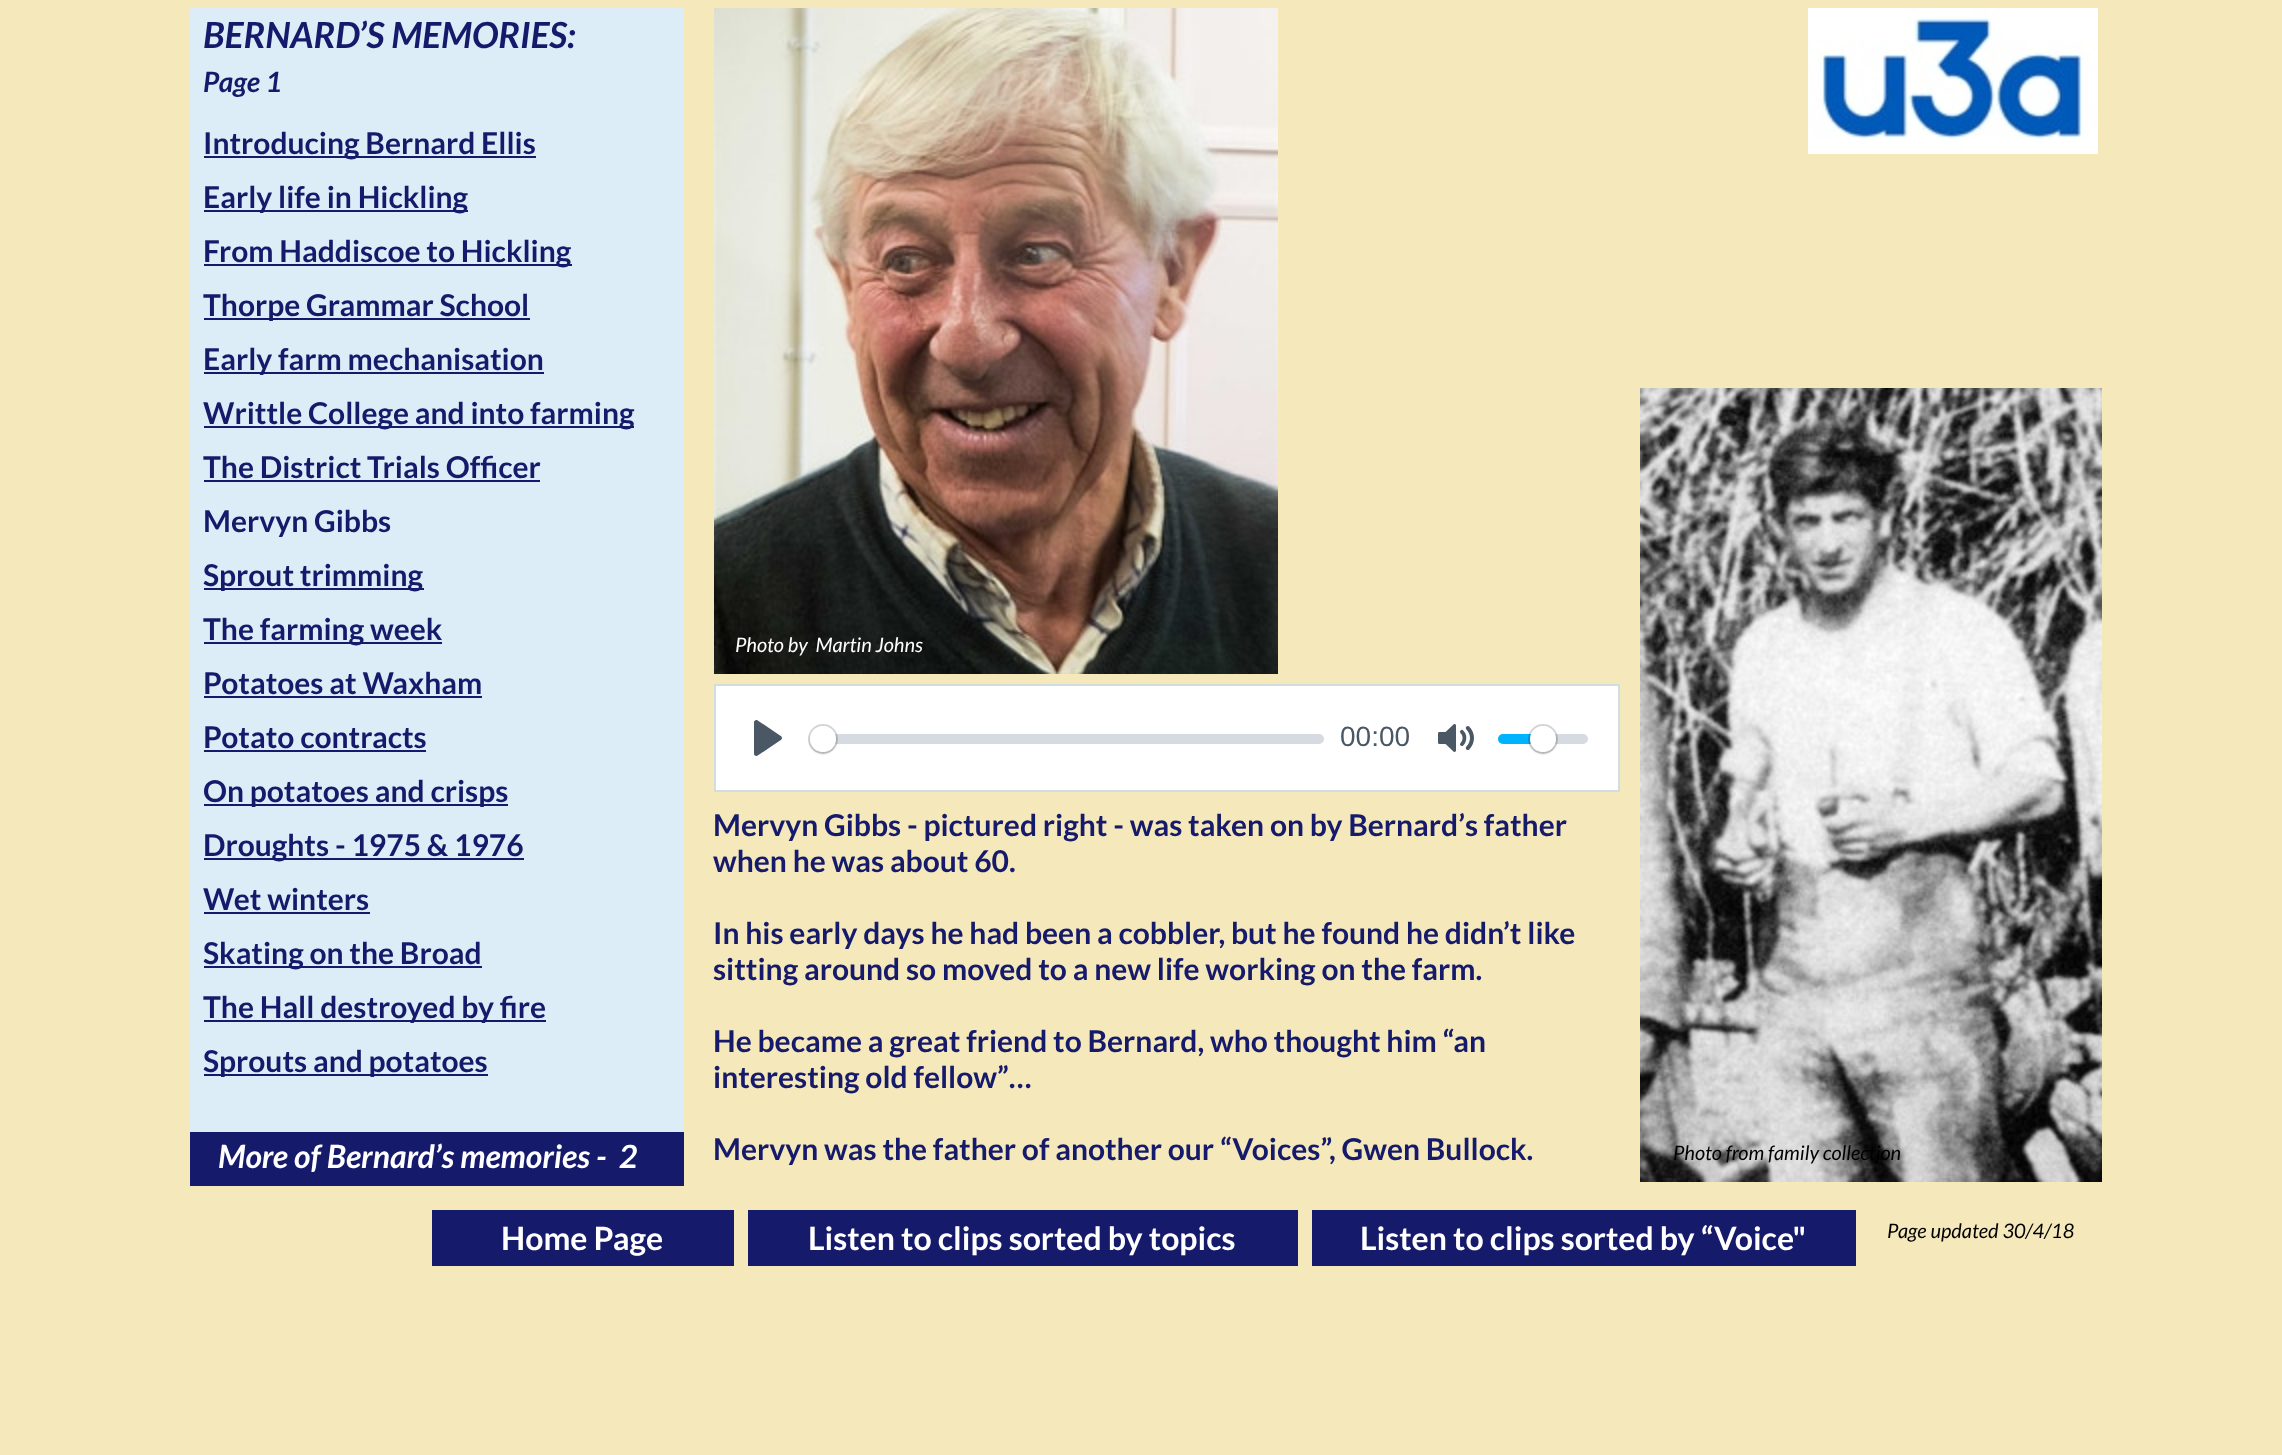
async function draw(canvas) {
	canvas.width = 2282;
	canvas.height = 1455;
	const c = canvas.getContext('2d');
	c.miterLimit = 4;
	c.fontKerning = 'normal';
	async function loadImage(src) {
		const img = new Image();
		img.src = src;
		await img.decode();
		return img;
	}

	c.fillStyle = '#f5e8bb';
	c.fillRect(0, 0, 2282, 1455);
	c.fillStyle = '#ddedf7';
	c.fillRect(190, 8, 494, 1124);
	c.font = 'italic bold 36px Lato';
	c.fillStyle = '#151a6b';
	c.fillText('BERNARD’S MEMORIES:', 203, 48);
	c.font = 'italic bold 28px Lato';
	c.fillText('Page 1', 203, 92);
	c.fillRect(204, 156, 332, 2);
	c.font = 'bold 30px Lato';
	c.fillText('Introducing Bernard Ellis', 203, 154);
	c.fillRect(204, 210, 264, 2);
	c.fillText('Early life in Hickling', 203, 208);
	c.fillRect(204, 264, 368, 2);
	c.fillText('From Haddiscoe to Hickling', 203, 262);
	c.fillRect(204, 318, 326, 2);
	c.fillText('Thorpe Grammar School', 203, 316);
	c.fillRect(204, 372, 340, 2);
	c.fillText('Early farm mechanisation', 203, 370);
	c.fillRect(204, 426, 430, 2);
	c.fillText('Writtle College and into farming', 203, 424);
	c.fillText('The District Trials Officer', 203, 478);
	c.fillRect(204, 480, 336, 2);
	c.fillText('Mervyn Gibbs', 203, 532);
	c.fillRect(204, 588, 220, 2);
	c.fillText('Sprout trimming', 203, 586);
	c.fillRect(204, 642, 238, 2);
	c.fillText('The farming week', 203, 640);
	c.fillText('Potatoes at Waxham', 203, 694);
	c.fillRect(204, 696, 278, 2);
	c.fillText('Potato contracts', 203, 748);
	c.fillRect(204, 750, 222, 2);
	c.fillRect(204, 804, 304, 2);
	c.fillText('On potatoes and crisps', 203, 802);
	c.fillRect(204, 858, 320, 2);
	c.fillText('Droughts - 1975 & 1976', 203, 856);
	c.fillText('Wet winters', 203, 910);
	c.fillRect(204, 912, 166, 2);
	c.fillRect(204, 966, 278, 2);
	c.fillText('Skating on the Broad', 203, 964);
	c.fillRect(204, 1020, 342, 2);
	c.fillText('The Hall destroyed by fire', 203, 1018);
	c.fillRect(204, 1074, 284, 2);
	c.fillText('Sprouts and potatoes', 203, 1072);
	c.fillRect(190, 1132, 494, 54);
	c.font = 'italic bold 32px Lato';
	c.fillStyle = '#fff';
	c.fillText('More of Bernard’s memories -  2', 218, 1168);
	c.drawImage(await loadImage('img1.png'), 714, 8, 564, 666);
	c.font = 'italic 20px Lato';
	c.fillText('Photo by  Martin Johns', 735, 652);
	c.beginPath();
	c.rect(715, 685, 904, 106);
	c.fill();
	c.strokeStyle = '#d1dee1';
	c.lineWidth = 2;
	c.stroke();
	c.drawImage(await loadImage('img2.png'), 754, 720, 28, 36);
	c.fillStyle = '#c1c9d1a8';
	c.beginPath();
	c.roundRect(810, 734, 514, 10, 5);
	c.fill();
	c.beginPath();
	c.arc(823, 739, 14, 0, 2 * Math.PI);
	c.strokeStyle = '#23292f33';
	c.stroke();
	c.fillStyle = '#00000026';
	c.filter = 'blur(1px)';
	c.beginPath();
	c.roundRect(810, 728, 26, 26, 13);
	c.fill();
	c.filter = 'none';
	c.fillStyle = '#fff';
	c.beginPath();
	c.arc(823, 739, 13, 0, 2 * Math.PI);
	c.fill();
	c.font = '28px Liberation Sans';
	c.fillStyle = '#4a5764';
	c.fillText('00:00', 1340, 746);
	c.drawImage(await loadImage('img3.png'), 1438, 724, 36, 28);
	c.fillStyle = '#d6dbe1';
	c.beginPath();
	c.roundRect(1498, 734, 90, 10, 5);
	c.fill();
	c.fillStyle = '#00b3ff';
	c.beginPath();
	c.roundRect(1498, 734, 46, 10, [5, 0, 0, 5]);
	c.fill();
	c.beginPath();
	c.arc(1543, 739, 14, 0, 2 * Math.PI);
	c.stroke();
	c.fillStyle = '#00000026';
	c.filter = 'blur(1px)';
	c.beginPath();
	c.roundRect(1530, 728, 26, 26, 13);
	c.fill();
	c.filter = 'none';
	c.fillStyle = '#fff';
	c.beginPath();
	c.arc(1543, 739, 13, 0, 2 * Math.PI);
	c.fill();
	c.font = 'bold 30px Lato';
	c.fillStyle = '#151a6b';
	for (const [text, x, y] of [
		['Mervyn Gibbs - pictured right - was taken on by Bernard’s father', 713, 836],
		['when he was about 60.', 713, 872],
		['In his early days he had been a cobbler, but he found he didn’t like', 713, 944],
		['sitting around so moved to a new life working on the farm.', 713, 980],
		['He became a great friend to Bernard, who thought him “an', 713, 1052],
		['interesting old fellow”…', 713, 1088],
		['Mervyn was the father of another our “Voices”, Gwen Bullock.', 713, 1160],
	]) {
		c.fillText(text, x, y);
	}
	c.fillRect(748, 1210, 550, 56);
	c.font = 'bold 32px Lato';
	c.fillStyle = '#fff';
	c.fillText('Listen to clips sorted by topics', 808, 1250);
	c.fillStyle = '#151a6b';
	c.fillRect(1312, 1210, 544, 56);
	c.fillStyle = '#fff';
	c.fillText('Listen to clips sorted by “Voice"', 1360, 1250);
	c.drawImage(await loadImage('img4.png'), 1808, 8, 290, 146);
	c.drawImage(await loadImage('img5.png'), 1640, 388, 462, 794);
	c.font = 'italic 20px Lato';
	c.fillStyle = '#000';
	c.fillText('Photo from family collection', 1673, 1160);
	c.fillText('Page updated 30/4/18', 1887, 1238);
	c.fillStyle = '#151a6b';
	c.fillRect(432, 1210, 302, 56);
	c.font = 'bold 32px Lato';
	c.fillStyle = '#fff';
	c.fillText('Home Page', 501, 1250);
}

draw(document.querySelector('canvas'));
